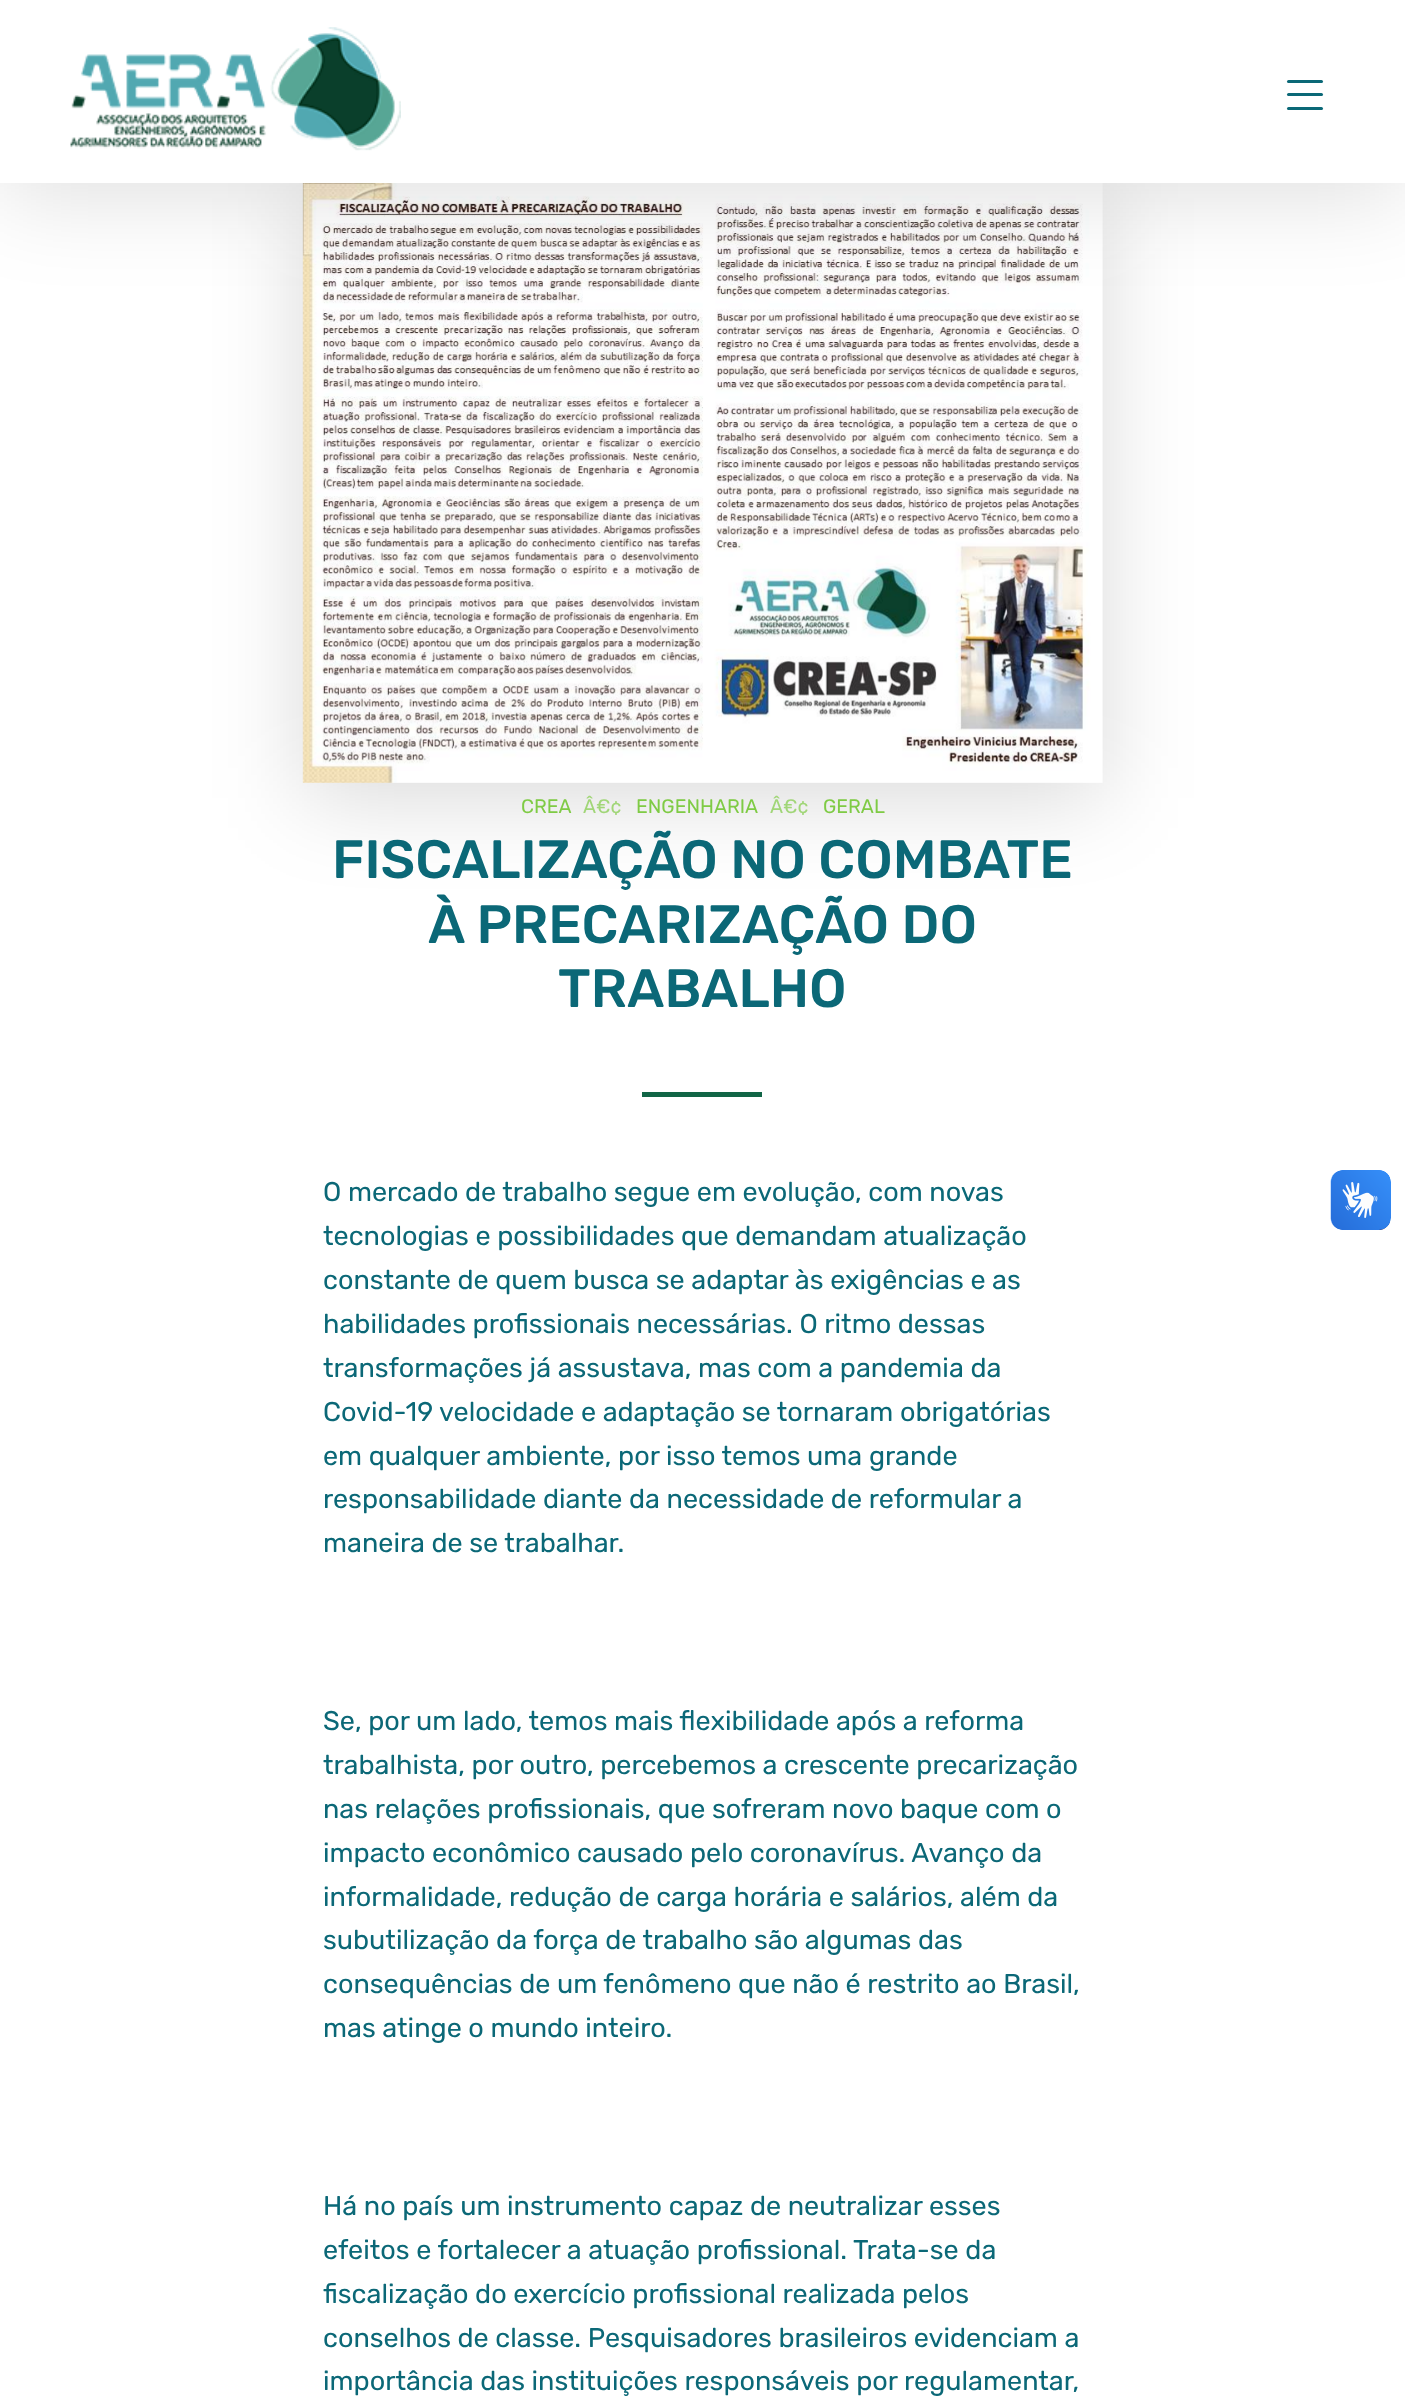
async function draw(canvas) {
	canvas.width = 1405;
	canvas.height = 2398;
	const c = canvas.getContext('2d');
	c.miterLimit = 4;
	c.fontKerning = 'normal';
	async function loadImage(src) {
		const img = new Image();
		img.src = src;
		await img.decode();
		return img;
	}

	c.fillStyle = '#fff';
	c.fillRect(0, 0, 1405, 2398);
	c.fillStyle = '#00000026';
	c.filter = 'blur(45px)';
	c.beginPath();
	c.rect(303, 198, 800, 600);
	c.fill();
	c.filter = 'none';
	c.drawImage(await loadImage('img2.png'), 302, 183, 801, 600);
	c.fillStyle = '#0000001f';
	c.filter = 'blur(45px)';
	c.beginPath();
	c.rect(0, 15, 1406, 183);
	c.fill();
	c.filter = 'none';
	c.fillStyle = '#fff';
	c.fillRect(0, 0, 1405, 183);
	c.drawImage(await loadImage('img1.png'), 70, 27, 331, 124);
	c.fillStyle = '#0b6877';
	c.beginPath();
	c.roundRect(1287, 80, 36, 3, 1.5);
	c.fill();
	c.beginPath();
	c.roundRect(1287, 107, 36, 3, 1.5);
	c.fill();
	c.beginPath();
	c.roundRect(1287, 93, 36, 3, 1.5);
	c.fill();
	c.font = '19.5px Rubik';
	c.fillStyle = '#7fcb45';
	c.fillText('CREA', 521, 813);
	c.fillStyle = '#a1d678';
	c.fillText('Â€¢', 583, 813);
	c.fillStyle = '#7fcb45';
	c.fillText('ENGENHARIA', 636, 813);
	c.fillStyle = '#a1d678';
	c.fillText('Â€¢', 770, 813);
	c.fillStyle = '#7fcb45';
	c.fillText('GERAL', 823, 813);
	c.font = '500 54px Rubik';
	c.fillStyle = '#0b6877';
	for (const [text, x, y] of [
		['FISCALIZAÇÃO NO COMBATE', 332, 878],
		['À PRECARIZAÇÃO DO', 428, 943],
		['TRABALHO', 558, 1007],
	]) {
		c.fillText(text, x, y);
	}
	c.fillStyle = '#116546';
	c.fillRect(642, 1092, 120, 5);
	c.font = '27px Rubik';
	c.fillStyle = '#0b6877';
	for (const [text, x, y] of [
		['O mercado de trabalho segue em evolução, com novas', 323, 1201],
		['tecnologias e possibilidades que demandam atualização', 323, 1245],
		['constante de quem busca se adaptar às exigências e as', 323, 1289],
		['habilidades profissionais necessárias. O ritmo dessas', 323, 1333],
		['transformações já assustava, mas com a pandemia da', 323, 1377],
		['Covid-19 velocidade e adaptação se tornaram obrigatórias', 323, 1421],
		['em qualquer ambiente, por isso temos uma grande', 323, 1465],
		['responsabilidade diante da necessidade de reformular a', 323, 1508],
		['maneira de se trabalhar.', 323, 1552],
		['Se, por um lado, temos mais flexibilidade após a reforma', 323, 1730],
		['trabalhista, por outro, percebemos a crescente precarização', 323, 1774],
		['nas relações profissionais, que sofreram novo baque com o', 323, 1818],
		['impacto econômico causado pelo coronavírus. Avanço da', 323, 1862],
		['informalidade, redução de carga horária e salários, além da', 323, 1906],
		['subutilização da força de trabalho são algumas das', 323, 1949],
		['consequências de um fenômeno que não é restrito ao Brasil,', 323, 1993],
		['mas atinge o mundo inteiro.', 323, 2037],
		['Há no país um instrumento capaz de neutralizar esses', 323, 2215],
		['efeitos e fortalecer a atuação profissional. Trata-se da', 323, 2259],
		['fiscalização do exercício profissional realizada pelos', 323, 2303],
		['conselhos de classe. Pesquisadores brasileiros evidenciam a', 323, 2347],
		['importância das instituições responsáveis por regulamentar,', 323, 2390],
	]) {
		c.fillText(text, x, y);
	}
	c.drawImage(await loadImage('img3.png'), 1330, 1170, 61, 60);
	c.drawImage(await loadImage('img4.png'), 1331, 1170, 60, 60);
}

draw(document.querySelector('canvas'));
